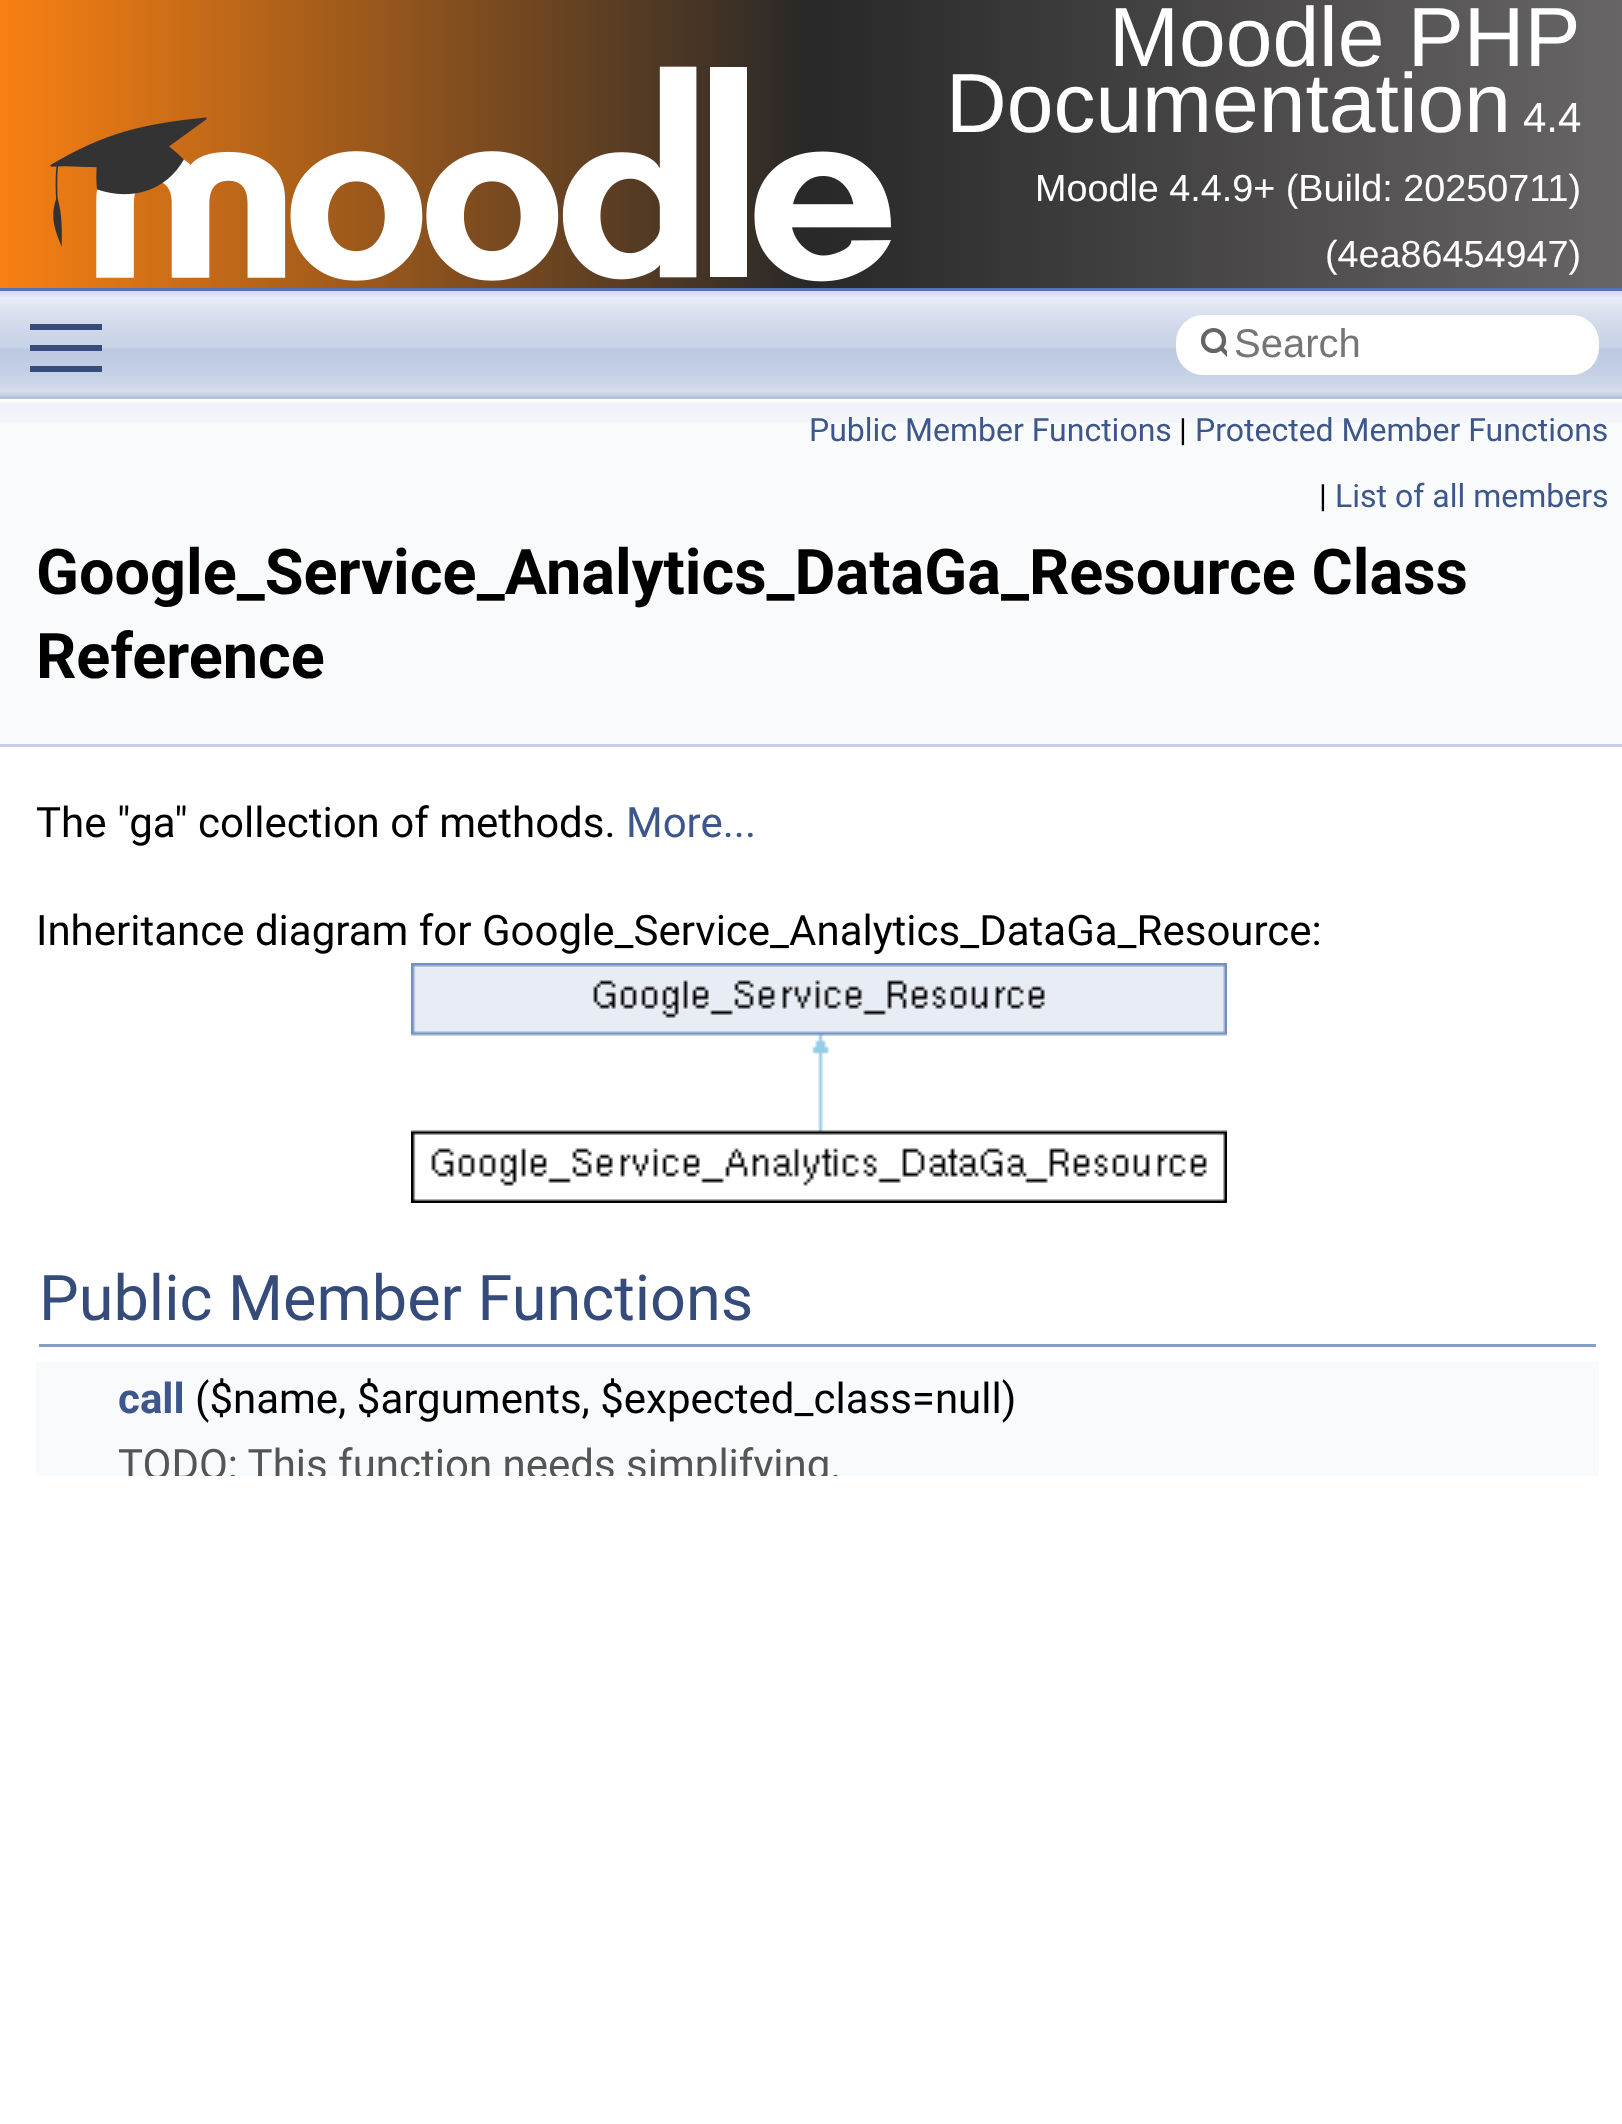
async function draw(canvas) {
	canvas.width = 1622;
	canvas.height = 2124;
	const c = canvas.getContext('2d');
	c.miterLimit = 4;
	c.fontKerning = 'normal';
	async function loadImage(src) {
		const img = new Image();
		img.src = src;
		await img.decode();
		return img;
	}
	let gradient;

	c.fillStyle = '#fff';
	c.fillRect(0, 0, 1622, 2124);
	gradient = c.createLinearGradient(0, 144, 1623, 144);
	gradient.addColorStop(0, '#f98012');
	gradient.addColorStop(0.5, '#282828');
	gradient.addColorStop(1, '#686566');
	c.fillStyle = gradient;
	c.fillRect(0, 0, 1622, 288);
	c.fillStyle = '#5373b4';
	c.fillRect(0, 288, 1622, 3);
	c.drawImage(await loadImage('img1.png'), 50, 66, 841, 216);
	c.font = '84px Liberation Sans';
	c.fillStyle = '#fff';
	c.fillText('Moodle PHP', 1109, 66);
	c.fillText('Documentation', 946, 132);
	c.font = '42px Liberation Sans';
	c.fillText('4.4', 1523, 132);
	c.font = '37.75px Liberation Sans';
	c.fillText('Moodle 4.4.9+ (Build: 20250711)', 1035, 201);
	c.fillText('(4ea86454947)', 1325, 267);
	c.drawImage(await loadImage('img2.png'), 0, 291, 1622, 108);
	for (const [x, y, w, h, color] of [
		[30, 345, 72, 6, '#364d7c'],
		[30, 324, 72, 6, '#364d7c'],
		[30, 366, 72, 6, '#364d7c'],
	]) {
		c.fillStyle = color;
		c.fillRect(x, y, w, h);
	}
	c.fillStyle = '#fff';
	c.beginPath();
	c.roundRect(1176, 315, 423, 60, 27);
	c.fill();
	c.beginPath();
	c.arc(1213.5, 340.5, 10.5, 0, 2 * Math.PI);
	c.strokeStyle = '#656565';
	c.lineWidth = 4.2;
	c.stroke();
	c.save();
	c.beginPath();
	c.rect(1197, 315, 30, 57);
	c.clip();
	c.beginPath();
	c.moveTo(1221.5, 348.5);
	c.lineTo(1229.5, 356.5);
	c.lineCap = 'round';
	c.stroke();
	c.restore();
	c.font = '40px Liberation Sans';
	c.fillStyle = '#757575';
	c.fillText('Search', 1234, 357);
	c.fillStyle = '#f9fafc';
	c.fillRect(0, 423, 1622, 321);
	c.drawImage(await loadImage('img3.png'), 0, 399, 1622, 24);
	c.fillStyle = '#c4cfe5';
	c.fillRect(0, 744, 1622, 3);
	c.font = '32px Roboto';
	c.fillStyle = '#3d578c';
	c.fillText('Public Member Functions', 809, 441);
	c.fillStyle = '#000';
	c.fillText('|', 1179, 441);
	c.fillStyle = '#3d578c';
	c.fillText('Protected Member Functions', 1195, 441);
	c.fillStyle = '#000';
	c.fillText('|', 1319, 507);
	c.fillStyle = '#3d578c';
	c.fillText('List of all members', 1335, 507);
	c.font = 'bold 63px Roboto';
	c.fillStyle = '#000';
	c.fillText('Google_Service_Analytics_DataGa_Resource Class', 36, 594);
	c.fillText('Reference', 36, 678);
	c.font = '42px Roboto';
	c.fillText('The "ga" collection of methods.', 36, 837);
	c.fillStyle = '#3d578c';
	c.fillText('More...', 626, 837);
	c.fillStyle = '#000';
	c.fillText('Inheritance diagram for Google_Service_Analytics_DataGa_Resource:', 36, 945);
	c.drawImage(await loadImage('img4.png'), 411, 963, 816, 240);
	c.fillStyle = '#879ecb';
	c.fillRect(39, 1344, 1557, 3);
	c.font = '63px Roboto';
	c.fillStyle = '#354c7b';
	c.fillText('Public Member Functions', 39, 1320);
	c.fillStyle = '#f9fafc';
	c.fillRect(36, 1362, 1563, 69);
	c.font = 'bold 42px Roboto';
	c.fillStyle = '#3d578c';
	c.fillText('call', 118, 1413);
	c.font = '42px Roboto';
	c.fillStyle = '#000';
	c.fillText('($name, $arguments, $expected_class=null)', 195, 1413);
	c.fillStyle = '#f9fafc';
	c.fillRect(36, 1431, 1563, 45);
	c.save();
	c.beginPath();
	c.rect(0, 399, 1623, 1077);
	c.clip();
	c.fillStyle = '#555';
	c.fillText('TODO: This function needs simplifying.', 118, 1479);
	c.restore();
}

draw(document.querySelector('canvas'));
